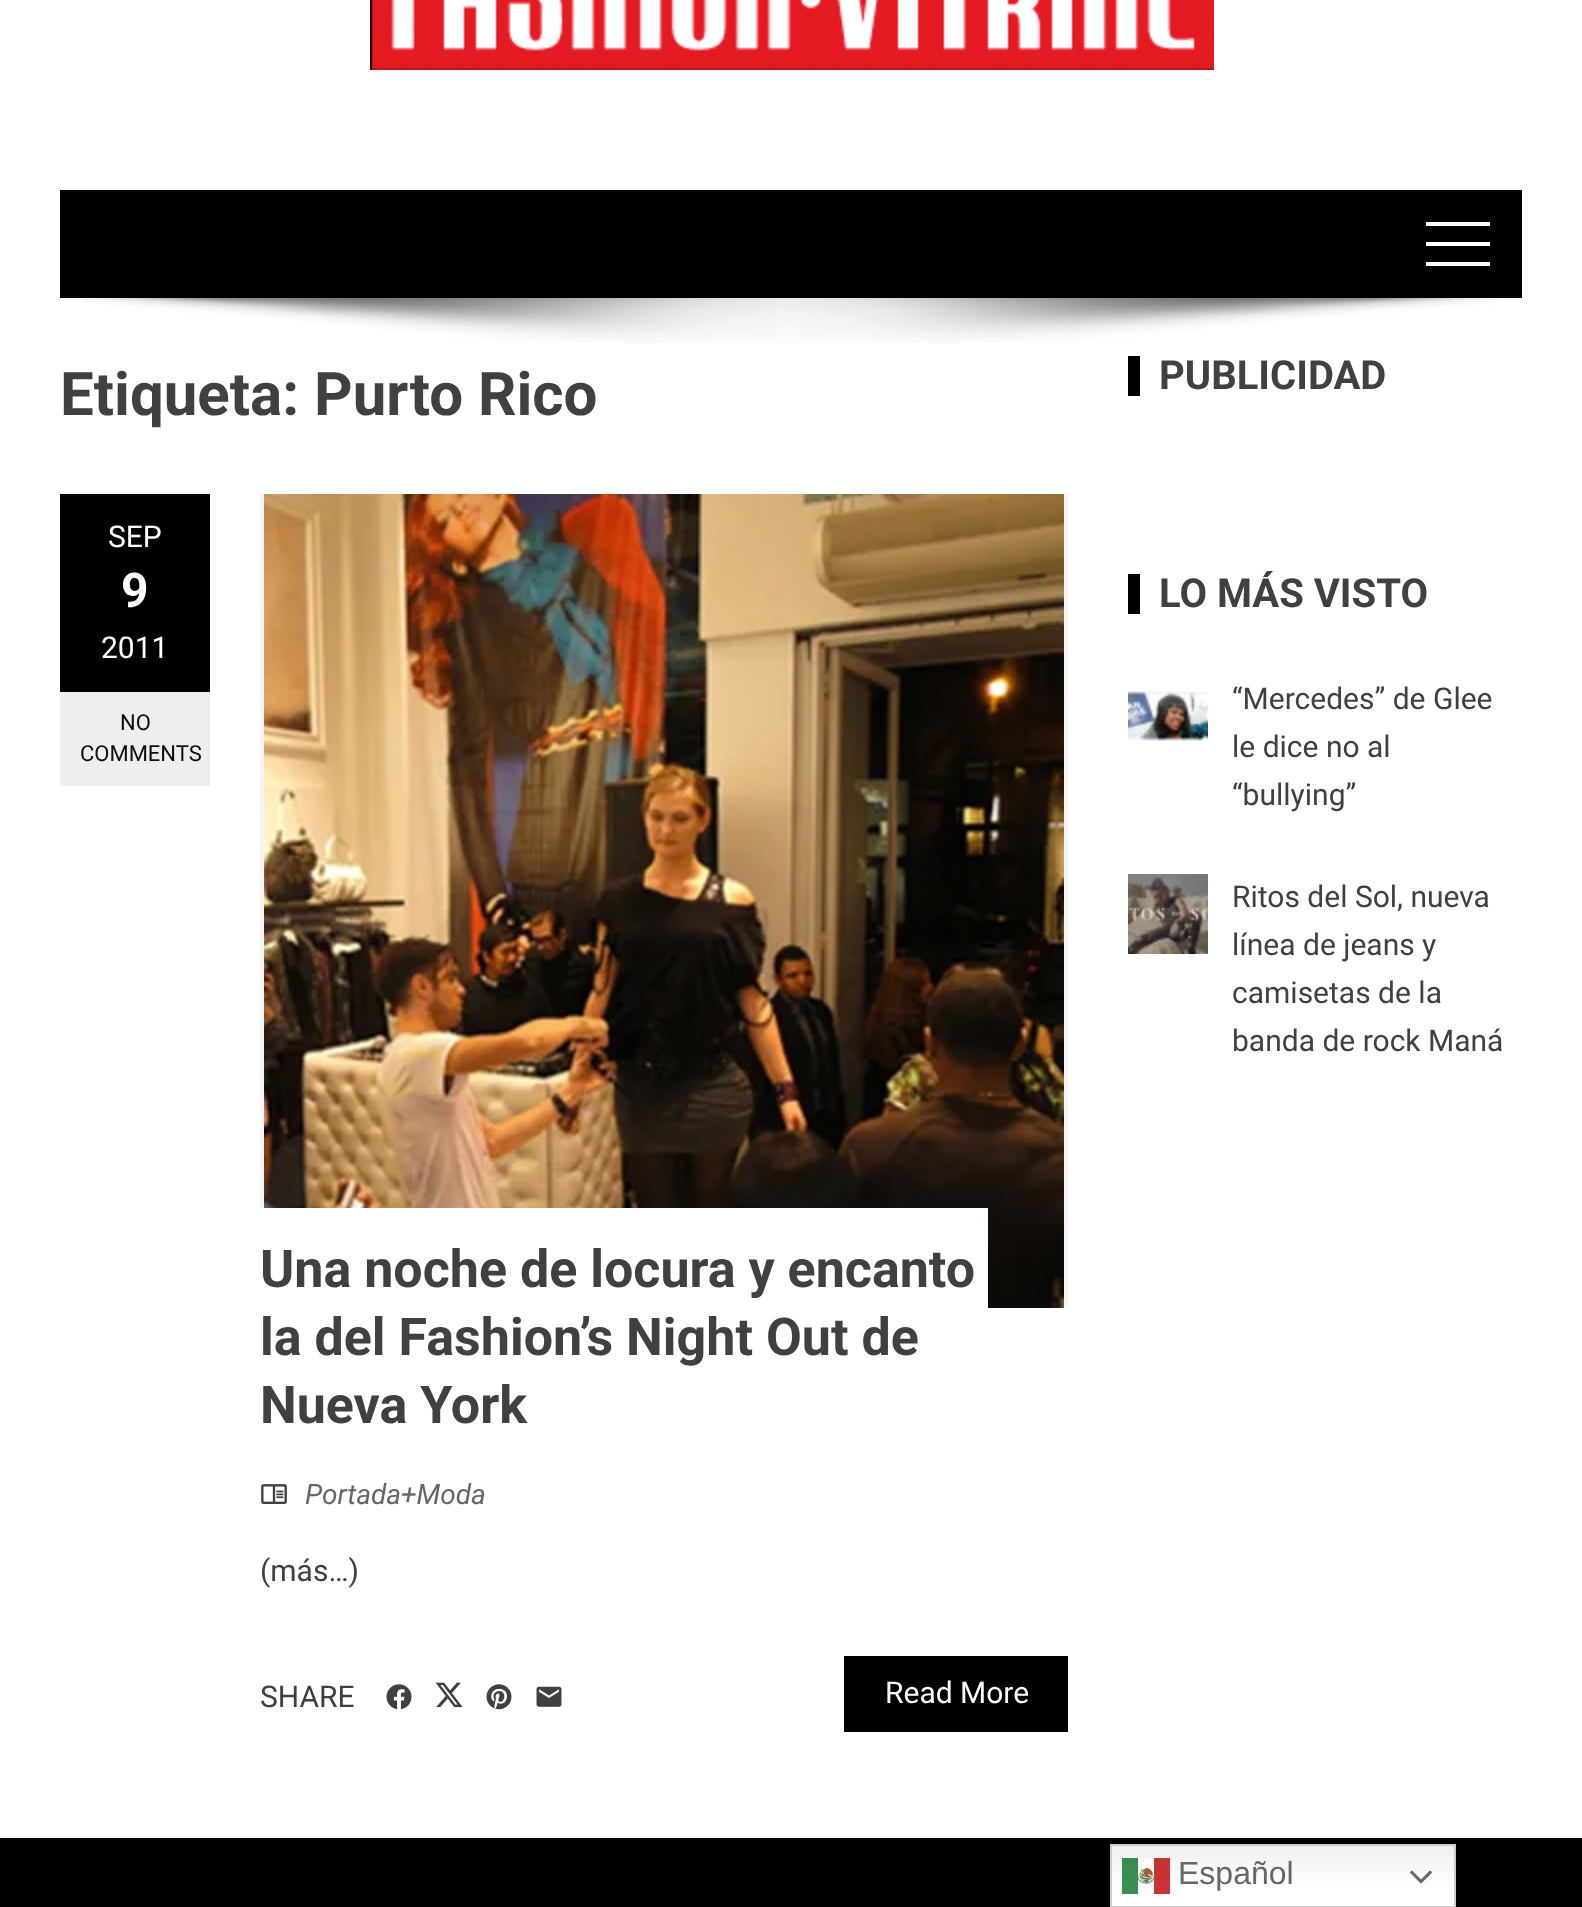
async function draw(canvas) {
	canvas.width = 1582;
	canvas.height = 1907;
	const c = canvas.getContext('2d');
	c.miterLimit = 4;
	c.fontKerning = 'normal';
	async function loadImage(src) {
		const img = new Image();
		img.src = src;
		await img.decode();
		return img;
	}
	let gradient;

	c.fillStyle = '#fff';
	c.fillRect(0, 0, 1582, 1907);
	c.drawImage(await loadImage('img1.png'), 370, 0, 844, 70);
	for (const [x, y, w, h, color] of [
		[60, 190, 1462, 108, '#000'],
		[1426, 222, 64, 4, '#fff'],
		[1426, 262, 64, 4, '#fff'],
		[1426, 242, 64, 4, '#fff'],
	]) {
		c.fillStyle = color;
		c.fillRect(x, y, w, h);
	}
	c.drawImage(await loadImage('img2.png'), 81, 298, 1419, 45);
	c.font = 'bold 60px Roboto';
	c.fillStyle = '#404040';
	c.fillText('Etiqueta: Purto Rico', 60, 415);
	c.fillStyle = '#000';
	c.fillRect(60, 494, 150, 198);
	c.font = '30px Roboto';
	c.fillStyle = '#fff';
	c.fillText('SEP', 108, 547);
	c.font = 'bold 48px Roboto';
	c.fillText('9', 121, 607);
	c.font = '30px Roboto';
	c.fillText('2011', 101, 658);
	c.fillStyle = '#eee';
	c.fillRect(60, 692, 150, 94);
	c.font = '22px Roboto';
	c.fillStyle = '#0e0e0e';
	c.fillText('NO', 120, 730);
	c.fillText('COMMENTS', 80, 761);
	c.fillStyle = '#f6f6f6';
	c.fillRect(260, 494, 808, 814);
	c.drawImage(await loadImage('img3.png'), 264, 494, 800, 814);
	c.fillStyle = '#fff';
	c.fillRect(260, 1208, 728, 100);
	c.font = 'bold 52px Roboto';
	c.fillStyle = '#404040';
	for (const [text, x, y] of [
		['Una noche de locura y encanto', 260, 1287],
		['la del Fashion’s Night Out de', 260, 1355],
		['Nueva York', 260, 1423],
	]) {
		c.fillText(text, x, y);
	}
	c.drawImage(await loadImage('img4.png'), 261, 1484, 26, 20);
	c.font = 'italic 28px Roboto';
	c.fillStyle = '#666';
	c.fillText('Portada+Moda', 305, 1504);
	c.font = '30px Roboto';
	c.fillStyle = '#404040';
	c.fillText('(más…)', 260, 1581);
	c.fillText('SHARE', 260, 1707);
	c.drawImage(await loadImage('img5.png'), 386, 1684, 26, 26);
	c.drawImage(await loadImage('img6.png'), 435, 1682, 28, 26);
	c.drawImage(await loadImage('img7.png'), 486, 1684, 26, 26);
	c.drawImage(await loadImage('img8.png'), 536, 1686, 26, 21);
	c.fillStyle = '#000';
	c.fillRect(844, 1656, 224, 76);
	c.fillStyle = '#fff';
	c.fillText('Read More', 885, 1703);
	c.fillStyle = '#000';
	c.fillRect(1128, 356, 12, 40);
	c.font = 'bold 40px Roboto';
	c.fillStyle = '#404040';
	c.fillText('PUBLICIDAD', 1159, 389);
	c.fillStyle = '#000';
	c.fillRect(1128, 574, 12, 40);
	c.fillStyle = '#404040';
	c.fillText('LO MÁS VISTO', 1159, 607);
	c.drawImage(await loadImage('img9.png'), 1128, 690, 80, 51);
	c.font = '30px Roboto';
	for (const [text, x, y] of [
		['“Mercedes” de Glee', 1232, 709],
		['le dice no al', 1232, 757],
		['“bullying”', 1232, 805],
	]) {
		c.fillText(text, x, y);
	}
	c.drawImage(await loadImage('img10.png'), 1128, 874, 80, 80);
	for (const [text, x, y] of [
		['Ritos del Sol, nueva', 1232, 907],
		['línea de jeans y', 1232, 955],
		['camisetas de la', 1232, 1003],
		['banda de rock Maná', 1232, 1051],
	]) {
		c.fillText(text, x, y);
	}
	c.fillStyle = '#000';
	c.fillRect(0, 1838, 1582, 69);
	gradient = c.createLinearGradient(1283, 1844, 1283, 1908);
	gradient.addColorStop(0, '#efefef');
	gradient.addColorStop(0.7, '#fff');
	c.fillStyle = gradient;
	c.fillRect(1112, 1846, 342, 60);
	c.strokeStyle = '#ccc';
	c.lineWidth = 2;
	c.strokeRect(1111, 1845, 344, 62);
	c.drawImage(await loadImage('img11.png'), 1122, 1858, 48, 36);
	c.font = '32px Liberation Sans';
	c.fillStyle = '#666';
	c.fillText('Español', 1178, 1884);
	c.drawImage(await loadImage('img12.png'), 1410, 1870, 22, 14);
}

draw(document.querySelector('canvas'));
